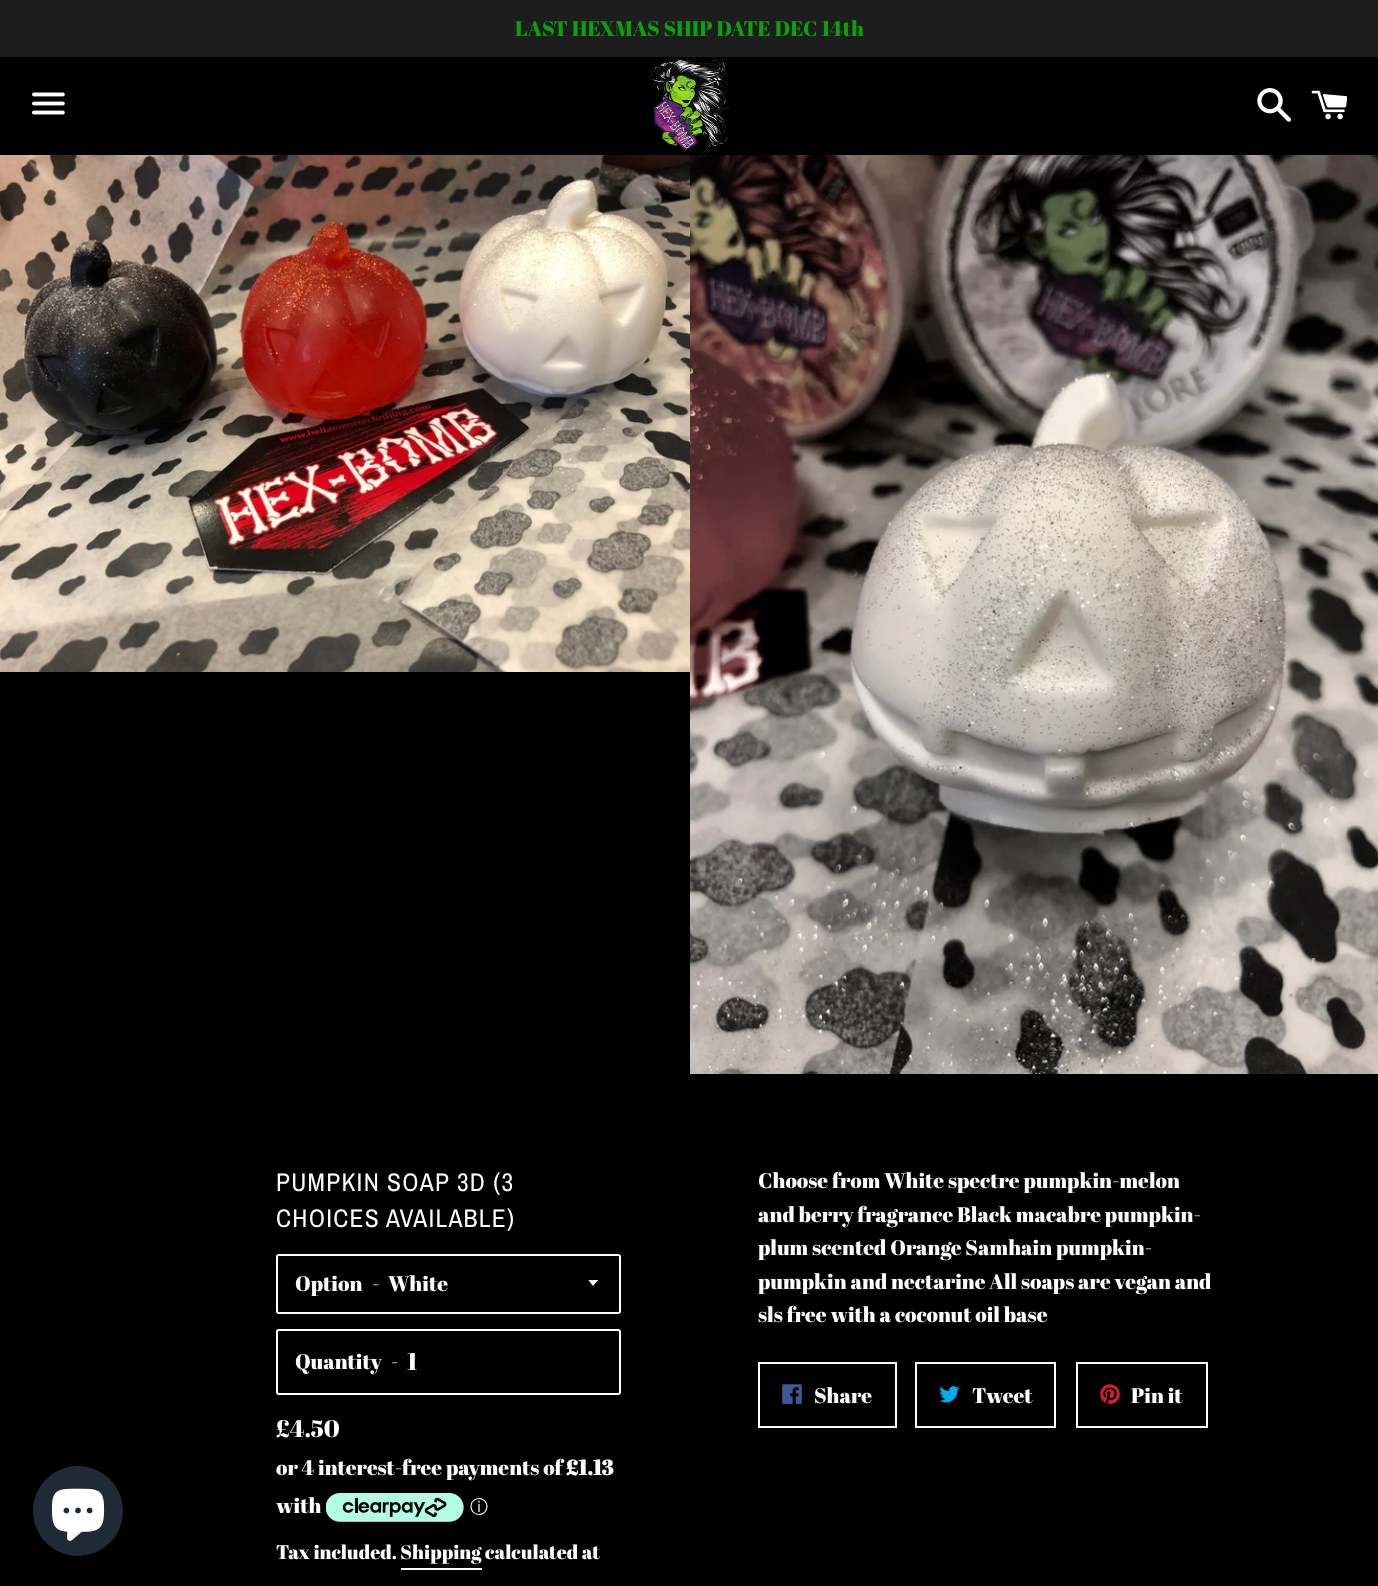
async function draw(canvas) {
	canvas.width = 1378;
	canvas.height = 1586;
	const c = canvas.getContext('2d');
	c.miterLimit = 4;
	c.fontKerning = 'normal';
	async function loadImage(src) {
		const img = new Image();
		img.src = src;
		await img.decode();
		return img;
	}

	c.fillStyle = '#000';
	c.fillRect(0, 0, 1378, 1586);
	c.fillStyle = '#202a36';
	c.beginPath();
	c.arc(78, 1511, 45, 0, 2 * Math.PI);
	c.fill();
	c.drawImage(await loadImage('img1.png'), 51, 1488, 54, 53);
	c.fillStyle = '#1d1d1d';
	c.fillRect(0, 0, 1378, 57);
	c.font = '21px Abril Fatface';
	c.fillStyle = '#0f9f0d';
	c.fillText('LAST HEXMAS SHIP DATE DEC 14th', 515, 36);
	c.drawImage(await loadImage('img2.png'), 32, 92, 33, 23);
	c.drawImage(await loadImage('img3.png'), 649, 58, 80, 96);
	c.drawImage(await loadImage('img4.png'), 1257, 88, 34, 34);
	c.drawImage(await loadImage('img5.png'), 1311, 90, 37, 30);
	c.drawImage(await loadImage('img6.png'), 0, 155, 690, 517);
	c.drawImage(await loadImage('img7.png'), 690, 155, 688, 919);
	c.letterSpacing = '1.25px';
	c.font = '25.5px Archivo Narrow';
	c.fillStyle = '#fff';
	c.fillText('PUMPKIN SOAP 3D (3', 276, 1191);
	c.fillText('CHOICES AVAILABLE)', 276, 1227);
	c.beginPath();
	c.roundRect(277, 1255, 343, 58, 2);
	c.strokeStyle = '#fff';
	c.lineWidth = 2;
	c.stroke();
	c.letterSpacing = '0px';
	c.font = '21px Abril Fatface';
	c.fillText('Option', 295, 1291);
	c.fillText('-', 372, 1291);
	c.save();
	c.beginPath();
	c.rect(588, 1280, 12, 7);
	c.clip();
	c.beginPath();
	c.moveTo(588, 1279.5);
	c.lineTo(593, 1286);
	c.lineTo(598.5, 1279.5);
	c.closePath();
	c.fill();
	c.restore();
	c.fillText('White', 388, 1291);
	c.beginPath();
	c.roundRect(277, 1330, 343, 64, 2);
	c.stroke();
	c.fillText('Quantity', 295, 1369);
	c.fillText('-', 391, 1369);
	c.font = '24px Abril Fatface';
	c.fillText('1', 407, 1370);
	c.fillText('£4.50', 276, 1437);
	c.font = '21px Abril Fatface';
	c.fillText('or 4 interest-free payments of', 276, 1475);
	c.font = 'bold 21px Abril Fatface';
	c.fillText('£1.13', 566, 1475);
	c.font = '21px Abril Fatface';
	c.fillText('with', 276, 1513);
	c.drawImage(await loadImage('img8.png'), 326, 1493, 138, 29);
	c.font = '500 18px WenQuanYi Zen Hei';
	c.fillText('ⓘ', 470, 1513);
	c.font = '19.5px Abril Fatface';
	c.fillText('Tax included. Shipping calculated at', 276, 1559);
	c.fillRect(401, 1568, 81, 2);
	c.font = '21px Abril Fatface';
	for (const [text, x, y] of [
		['Choose from White spectre pumpkin-melon', 758, 1188],
		['and berry fragrance Black macabre pumpkin-', 758, 1222],
		['plum scented Orange Samhain pumpkin-', 758, 1255],
		['pumpkin and nectarine All soaps are vegan and', 758, 1289],
		['sls free with a coconut oil base', 758, 1322],
	]) {
		c.fillText(text, x, y);
	}
	c.strokeRect(759, 1363, 137, 64);
	c.drawImage(await loadImage('img9.png'), 782, 1384, 20, 20);
	c.fillText('Share', 814, 1403);
	c.strokeRect(916, 1363, 139, 64);
	c.drawImage(await loadImage('img10.png'), 939, 1386, 21, 17);
	c.fillText('Tweet', 972, 1403);
	c.strokeRect(1077, 1363, 130, 64);
	c.drawImage(await loadImage('img11.png'), 1100, 1384, 20, 20);
	c.fillText('Pin it', 1131, 1403);
}

draw(document.querySelector('canvas'));
